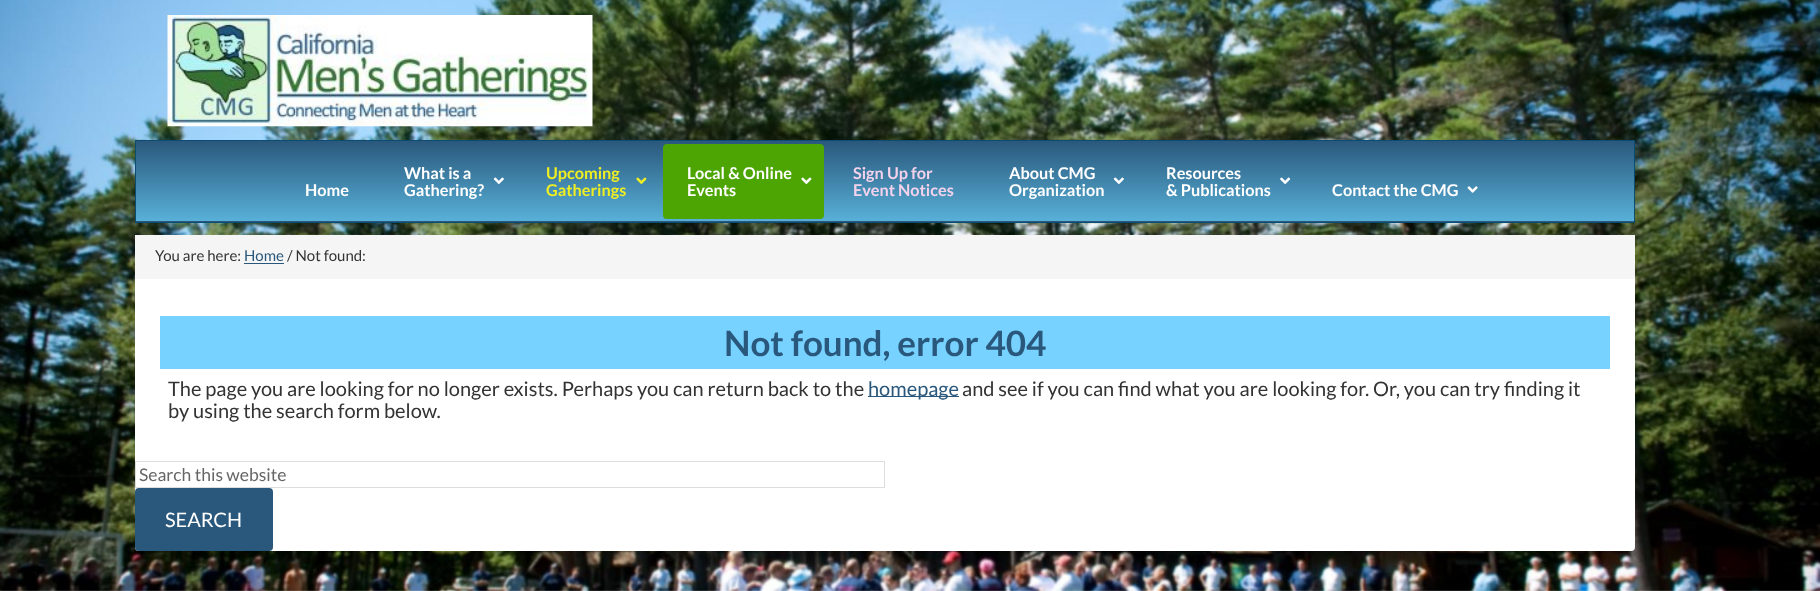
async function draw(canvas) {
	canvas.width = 1820;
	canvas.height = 591;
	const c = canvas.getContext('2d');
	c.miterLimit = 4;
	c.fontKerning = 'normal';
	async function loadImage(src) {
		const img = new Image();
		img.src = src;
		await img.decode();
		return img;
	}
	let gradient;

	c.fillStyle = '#fff';
	c.fillRect(0, 0, 1820, 591);
	c.drawImage(await loadImage('img1.png'), 0, 0, 1820, 591);
	c.drawImage(await loadImage('img2.png'), 167, 15, 426, 112);
	gradient = c.createLinearGradient(885, 141, 885, 221);
	gradient.addColorStop(0, '#2a587c');
	gradient.addColorStop(1, '#58b0d8');
	c.fillStyle = gradient;
	c.fillRect(136, 141, 1498, 80);
	gradient = c.createLinearGradient(885, 221, 885, 301);
	gradient.addColorStop(0, '#2a587c');
	gradient.addColorStop(1, '#58b0d8');
	c.fillStyle = gradient;
	c.fillRect(135, 221, 1500, 1);
	c.strokeStyle = '#0b4c72';
	c.strokeRect(135.5, 140.5, 1499, 82);
	c.font = 'bold 16.25px Lato';
	c.fillStyle = '#fff';
	for (const [text, x, y] of [
		['Home', 305, 196],
		['What is a', 404, 179],
		['Gathering?', 404, 196],
	]) {
		c.fillText(text, x, y);
	}
	c.drawImage(await loadImage('img3.png'), 493, 177, 11, 7);
	c.fillStyle = '#ee2';
	c.fillText('Upcoming', 546, 179);
	c.fillText('Gatherings', 546, 196);
	c.drawImage(await loadImage('img4.png'), 636, 177, 11, 7);
	c.fillStyle = '#4ca502';
	c.beginPath();
	c.roundRect(663, 144, 161, 75, 4);
	c.fill();
	c.fillStyle = '#fff';
	c.fillText('Local & Online', 687, 179);
	c.fillText('Events', 687, 196);
	c.drawImage(await loadImage('img5.png'), 801, 177, 11, 7);
	c.fillStyle = '#f4d2ec';
	c.fillText('Sign Up for', 853, 179);
	c.fillText('Event Notices', 853, 196);
	c.fillStyle = '#fff';
	c.fillText('About CMG', 1009, 179);
	c.fillText('Organization', 1009, 196);
	c.drawImage(await loadImage('img3.png'), 1113, 177, 11, 7);
	c.fillText('Resources', 1166, 179);
	c.fillText('& Publications', 1166, 196);
	c.drawImage(await loadImage('img6.png'), 1280, 177, 11, 7);
	c.fillText('Contact the CMG', 1332, 196);
	c.drawImage(await loadImage('img7.png'), 1467, 186, 11, 7);
	c.beginPath();
	c.roundRect(135, 235, 1500, 316, 4);
	c.fill();
	c.fillStyle = '#f5f5f5';
	c.fillRect(135, 235, 1500, 44);
	c.font = '15px Lato';
	c.fillStyle = '#333';
	c.fillText('You are here:', 155, 261);
	c.fillStyle = '#2a587c';
	c.fillText('Home', 244, 261);
	c.fillRect(244, 263, 40, 1);
	c.fillStyle = '#333';
	c.fillText('/ Not found:', 287, 261);
	c.fillStyle = '#77d2ff';
	c.fillRect(160, 316, 1450, 53);
	c.font = 'bold 35px Lato';
	c.fillStyle = '#2a587c';
	c.fillText('Not found, error 404', 724, 356);
	c.font = '20px Lato';
	c.fillStyle = '#333';
	c.fillText('The page you are looking for no longer exists. Perhaps you can return back to the', 168, 396);
	c.fillStyle = '#2a587c';
	c.fillRect(868, 396, 91, 1);
	c.fillText('homepage', 868, 396);
	c.fillStyle = '#333';
	c.fillText('and see if you can find what you are looking for. Or, you can try finding it', 962, 396);
	c.fillText('by using the search form below.', 168, 418);
	c.strokeStyle = '#ddd';
	c.strokeRect(135.5, 461.5, 749, 26);
	c.font = '17.5px Lato';
	c.fillStyle = '#666';
	c.fillText('Search this website', 139, 481);
	c.fillStyle = '#2a587c';
	c.beginPath();
	c.roundRect(135, 488, 138, 63, 4);
	c.fill();
	c.font = '20px Lato';
	c.fillStyle = '#fff';
	c.fillText('SEARCH', 165, 527);
}

draw(document.querySelector('canvas'));
